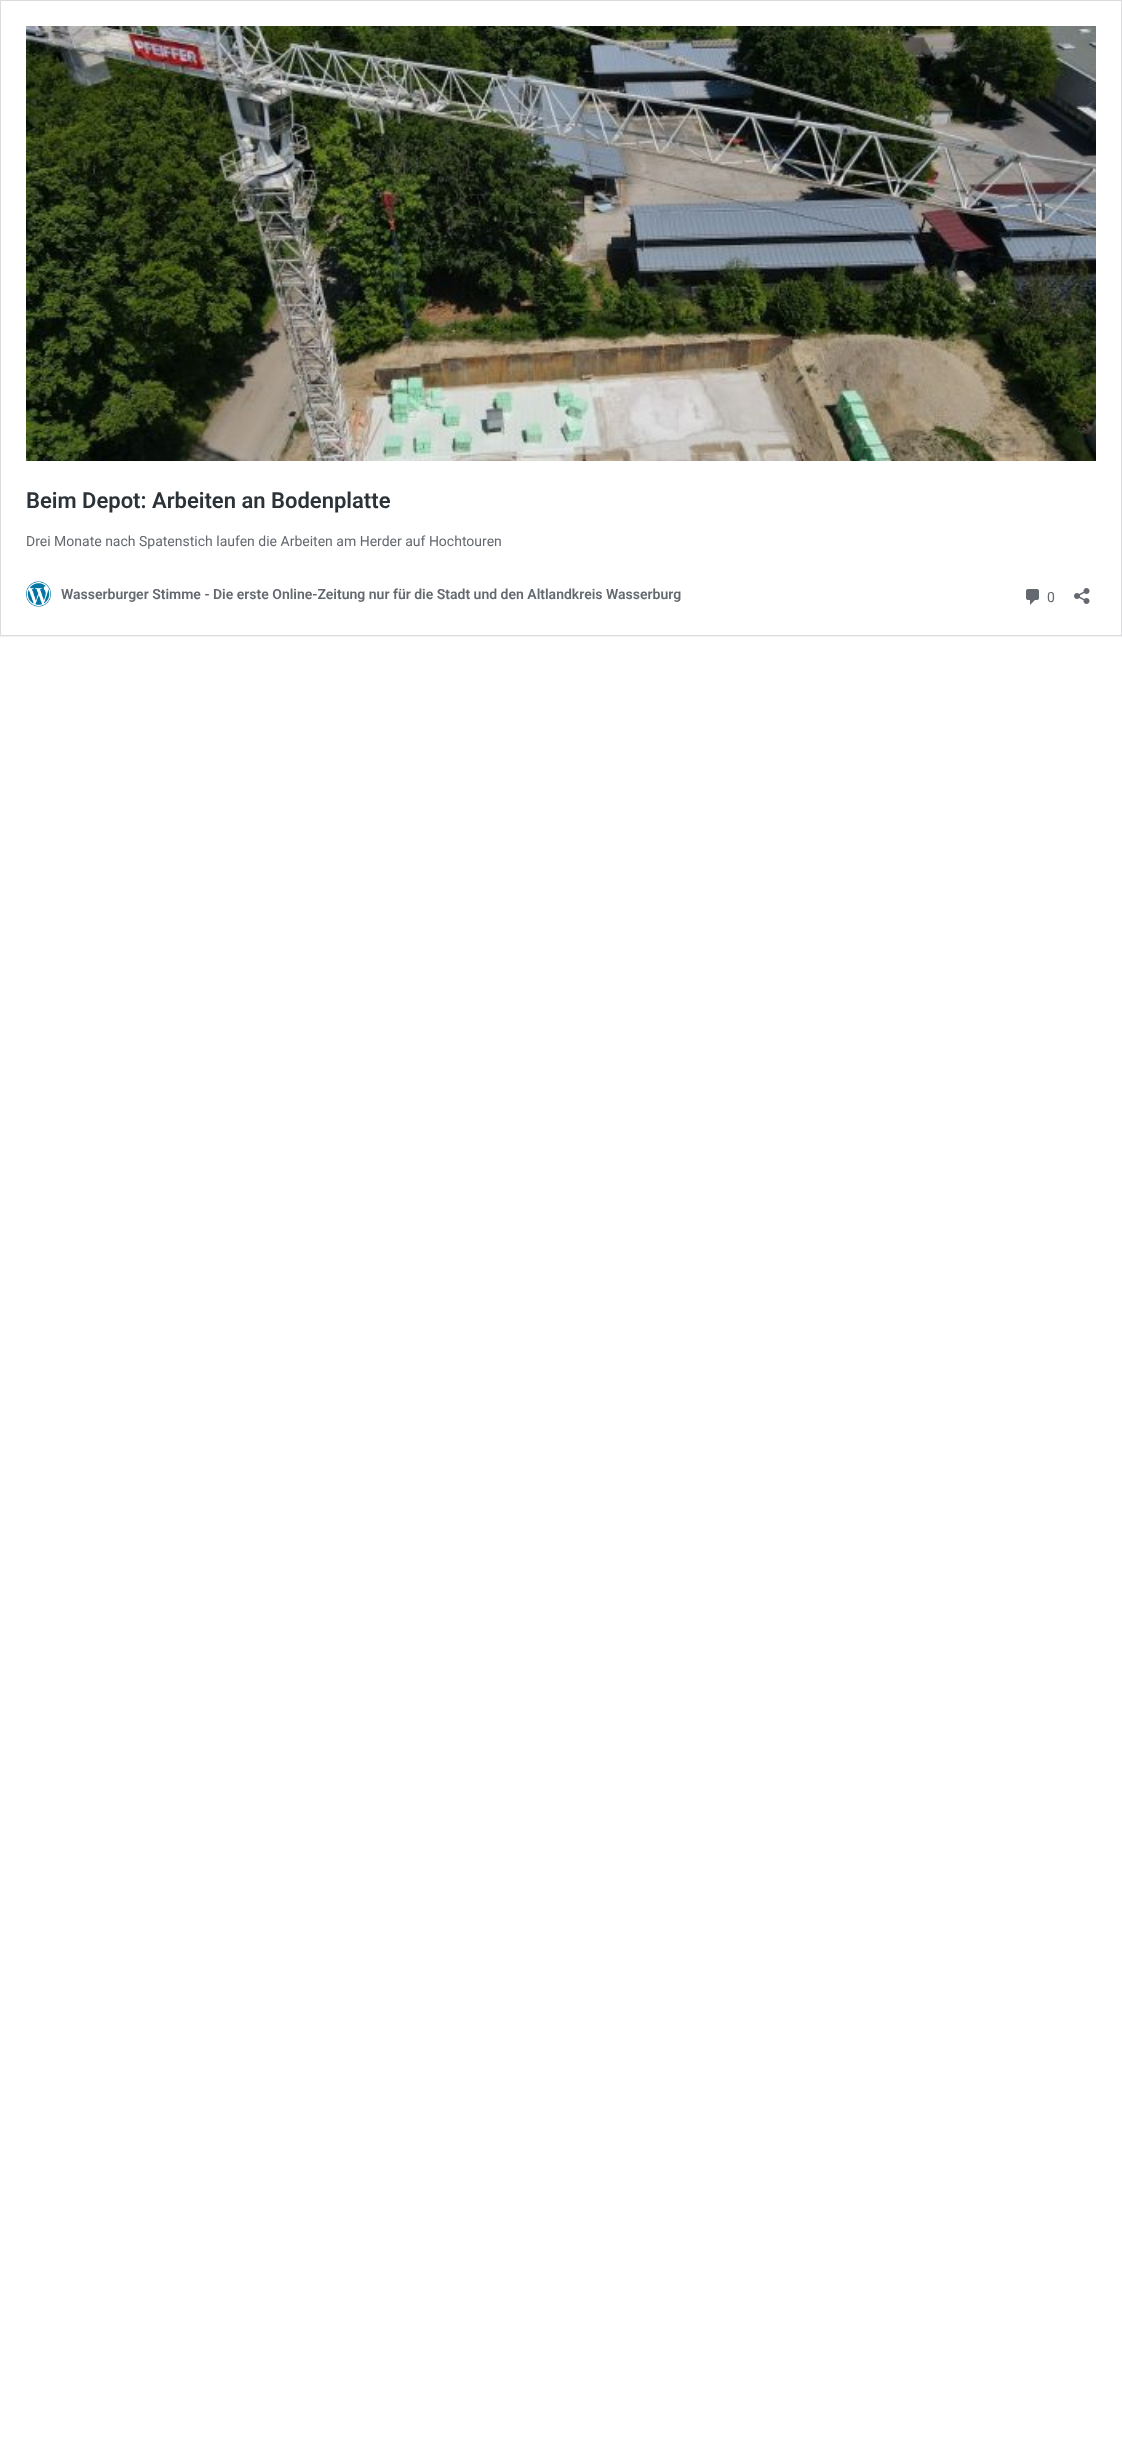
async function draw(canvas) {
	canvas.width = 1122;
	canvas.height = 2461;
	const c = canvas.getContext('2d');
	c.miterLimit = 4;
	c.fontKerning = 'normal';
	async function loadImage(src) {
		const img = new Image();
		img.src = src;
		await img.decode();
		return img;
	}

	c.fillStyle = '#fff';
	c.fillRect(0, 0, 1122, 2461);
	c.save();
	c.beginPath();
	c.rect(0, 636, 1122, 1);
	c.clip();
	c.fillStyle = '#0000000d';
	c.filter = 'blur(0.5px)';
	c.beginPath();
	c.rect(0, 1, 1122, 636);
	c.fill();
	c.filter = 'none';
	c.restore();
	c.strokeStyle = '#dcdcde';
	c.strokeRect(0.5, 0.5, 1121, 635);
	c.drawImage(await loadImage('img1.png'), 26, 26, 1070, 435);
	c.font = '600 22px Roboto';
	c.fillStyle = '#2c3338';
	c.fillText('Beim Depot: Arbeiten an Bodenplatte', 26, 508);
	c.font = '14px Roboto';
	c.fillStyle = '#646970';
	c.fillText('Drei Monate nach Spatenstich laufen die Arbeiten am Herder auf Hochtouren', 26, 546);
	c.drawImage(await loadImage('img2.png'), 26, 581, 25, 26);
	c.font = '600 14px Roboto';
	c.fillText('Wasserburger Stimme - Die erste Online-Zeitung nur für die Stadt und den Altlandkreis Wasserburg', 61, 599);
	c.drawImage(await loadImage('img3.png'), 1026, 589, 13, 16);
	c.font = '14px Roboto';
	c.fillText('0', 1047, 602);
	c.drawImage(await loadImage('img4.png'), 1074, 588, 16, 16);
}

draw(document.querySelector('canvas'));
